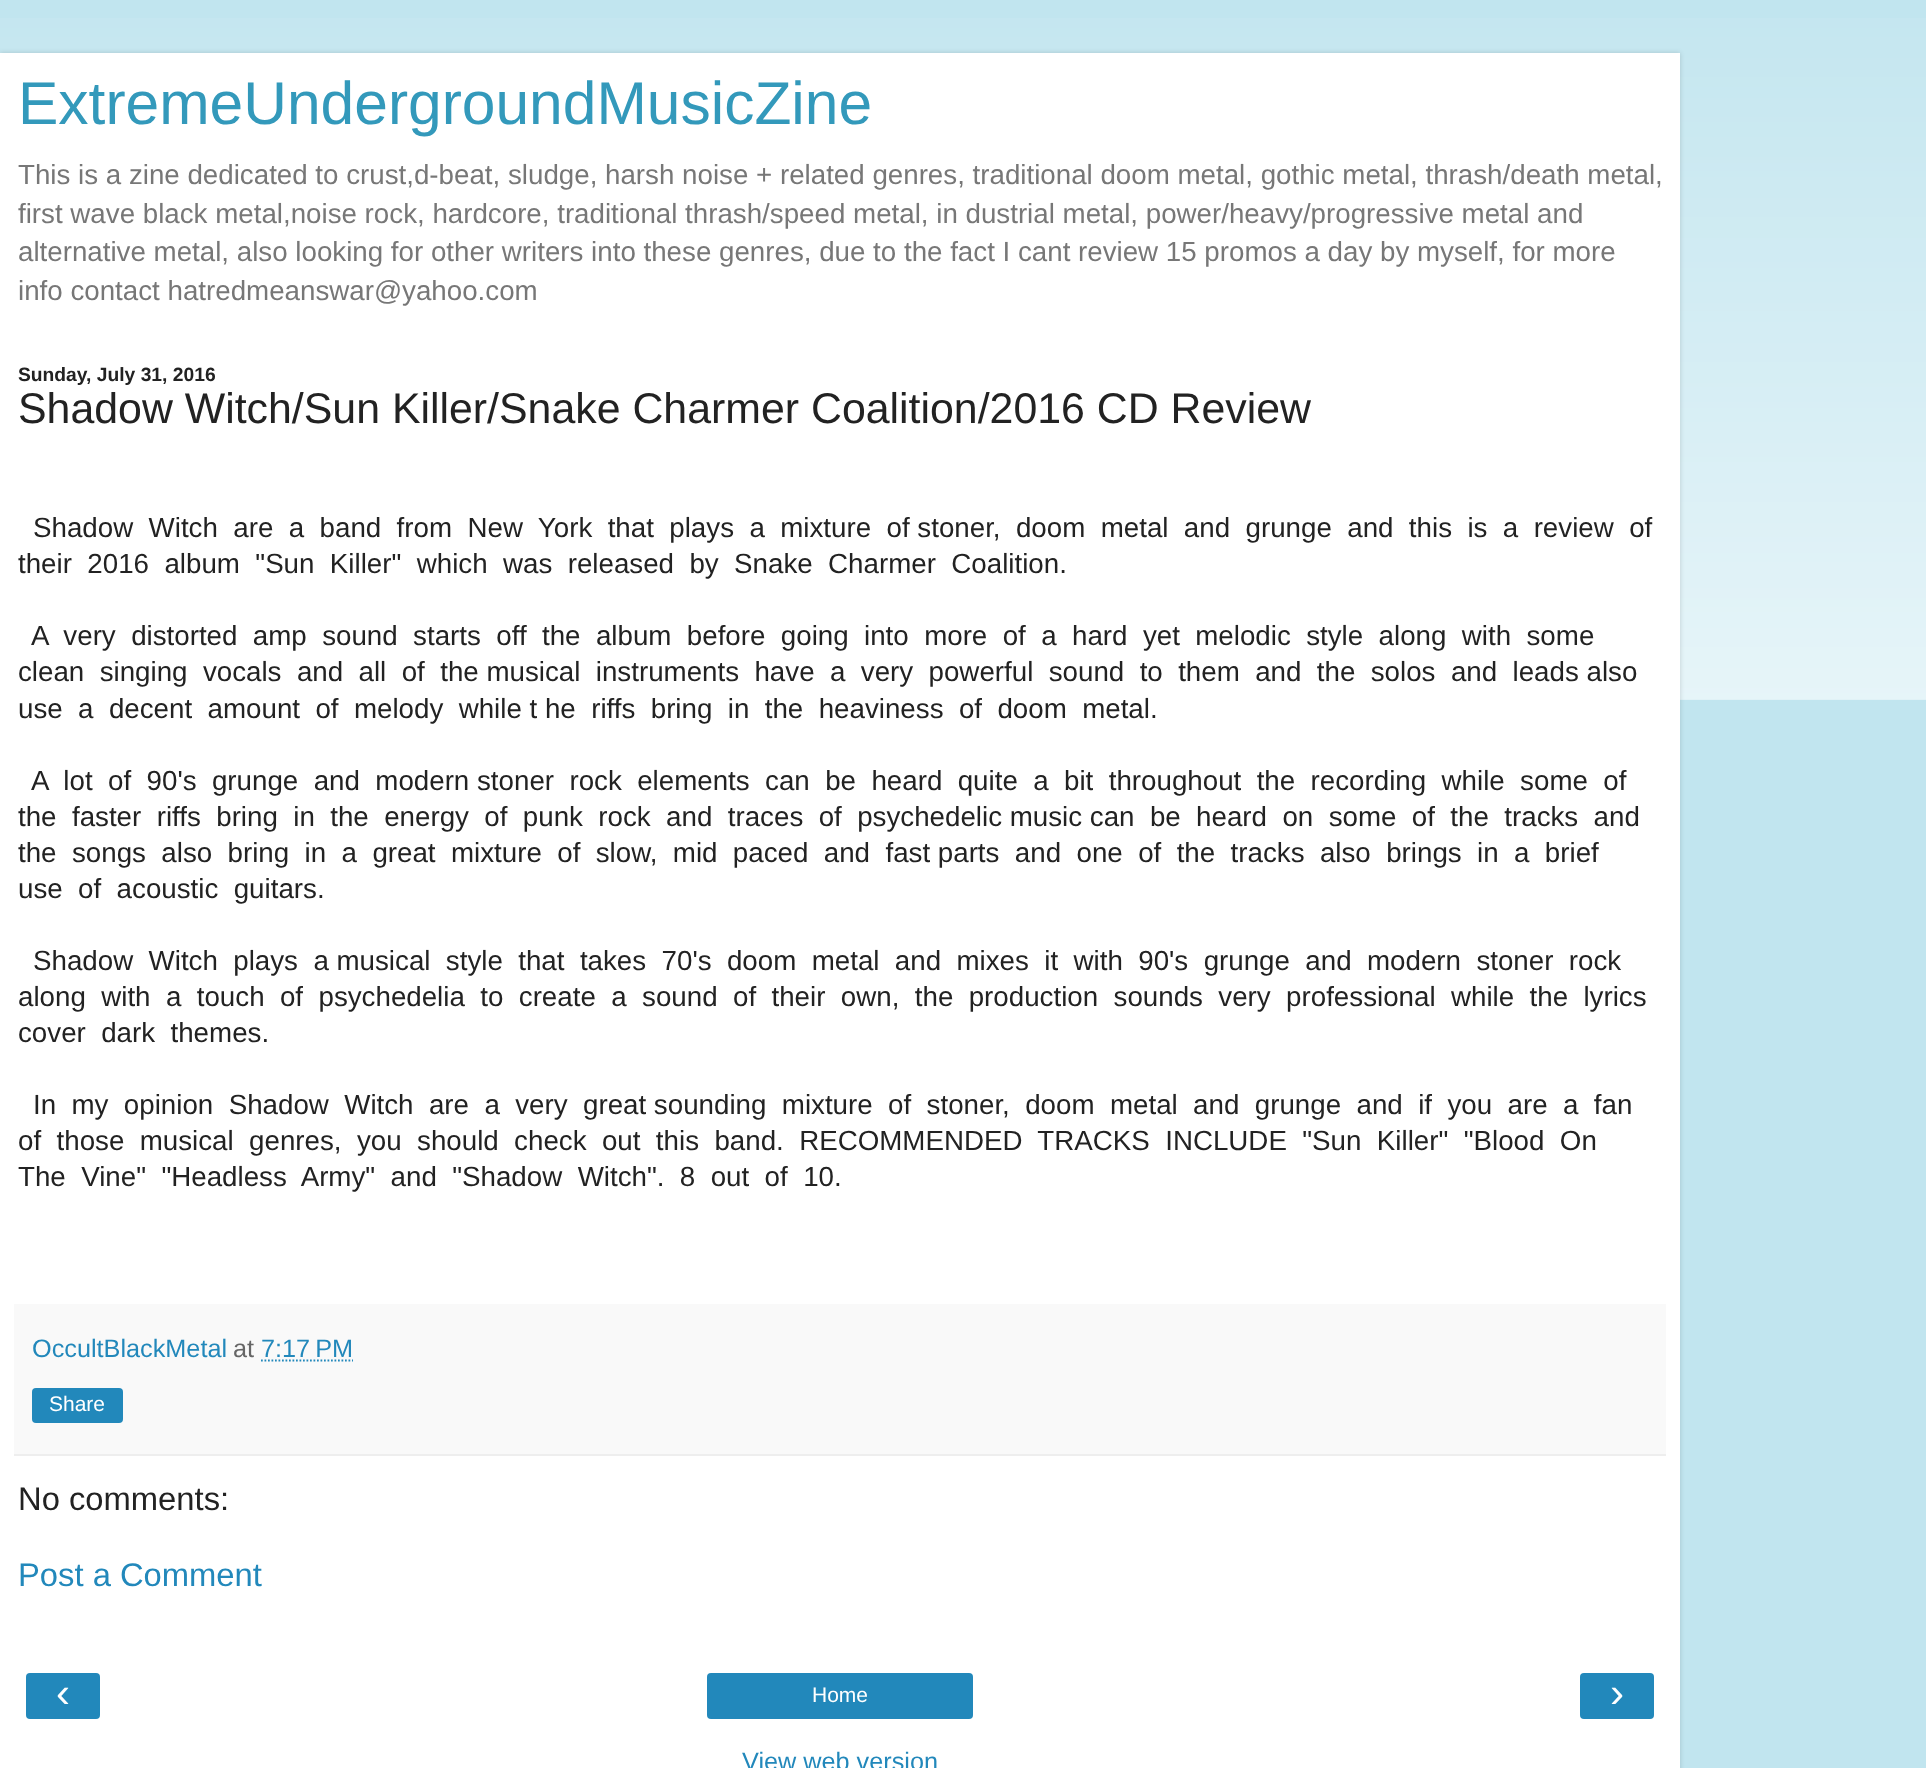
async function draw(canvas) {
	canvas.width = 1926;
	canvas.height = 1768;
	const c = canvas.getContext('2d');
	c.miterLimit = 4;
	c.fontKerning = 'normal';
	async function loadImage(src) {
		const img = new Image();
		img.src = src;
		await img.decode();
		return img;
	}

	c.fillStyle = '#c1e5ef';
	c.fillRect(0, 0, 1926, 1768);
	c.drawImage(await loadImage('img1.png'), 0, 18, 1926, 682);
	c.fillStyle = '#00000026';
	c.filter = 'blur(2.5px)';
	c.beginPath();
	c.rect(0, 53, 1680, 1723);
	c.fill();
	c.filter = 'none';
	c.fillStyle = '#fff';
	c.fillRect(0, 53, 1680, 1715);
	c.font = '60.5px Liberation Sans';
	c.fillStyle = '#39b';
	c.fillText('ExtremeUndergroundMusicZine', 18, 124);
	c.font = '27.72px Liberation Sans';
	c.fillStyle = '#777';
	for (const [text, x, y] of [
		['This is a zine dedicated to crust,d-beat, sludge, harsh noise + related genres, traditional doom metal, gothic metal, thrash/death metal,', 18, 184],
		['first wave black metal,noise rock, hardcore, traditional thrash/speed metal, in dustrial metal, power/heavy/progressive metal and', 18, 223],
		['alternative metal, also looking for other writers into these genres, due to the fact I cant review 15 promos a day by myself, for more', 18, 261],
		['info contact hatredmeanswar@yahoo.com', 18, 300],
	]) {
		c.fillText(text, x, y);
	}
	c.font = 'bold 19.25px Liberation Sans';
	c.fillStyle = '#222';
	c.fillText('Sunday, July 31, 2016', 18, 381);
	c.font = '42.85px Liberation Sans';
	c.fillText('Shadow Witch/Sun Killer/Snake Charmer Coalition/2016 CD Review', 18, 423);
	c.font = '27.72px Liberation Sans';
	for (const [text, x, y] of [
		['Shadow  Witch  are  a  band  from  New  York  that  plays  a  mixture  of stoner,  doom  metal  and  grunge  and  this  is  a  review  of', 33, 537],
		['their  2016  album  "Sun  Killer"  which  was  released  by  Snake  Charmer  Coalition.', 18, 573],
		['A  very  distorted  amp  sound  starts  off  the  album  before  going  into  more  of  a  hard  yet  melodic  style  along  with  some', 31, 645],
		['clean  singing  vocals  and  all  of  the musical  instruments  have  a  very  powerful  sound  to  them  and  the  solos  and  leads also', 18, 681],
		['use  a  decent  amount  of  melody  while t he  riffs  bring  in  the  heaviness  of  doom  metal.', 18, 718],
		['A  lot  of  90\'s  grunge  and  modern stoner  rock  elements  can  be  heard  quite  a  bit  throughout  the  recording  while  some  of', 31, 790],
		['the  faster  riffs  bring  in  the  energy  of  punk  rock  and  traces  of  psychedelic music can  be  heard  on  some  of  the  tracks  and', 18, 826],
		['the  songs  also  bring  in  a  great  mixture  of  slow,  mid  paced  and  fast parts  and  one  of  the  tracks  also  brings  in  a  brief', 18, 862],
		['use  of  acoustic  guitars.', 18, 898],
		['Shadow  Witch  plays  a musical  style  that  takes  70\'s  doom  metal  and  mixes  it  with  90\'s  grunge  and  modern  stoner  rock', 33, 970],
		['along  with  a  touch  of  psychedelia  to  create  a  sound  of  their  own,  the  production  sounds  very  professional  while  the  lyrics', 18, 1006],
		['cover  dark  themes.', 18, 1042],
		['In  my  opinion  Shadow  Witch  are  a  very  great sounding  mixture  of  stoner,  doom  metal  and  grunge  and  if  you  are  a  fan', 33, 1114],
		['of  those  musical  genres,  you  should  check  out  this  band.  RECOMMENDED  TRACKS  INCLUDE  "Sun  Killer"  "Blood  On', 18, 1150],
		['The  Vine"  "Headless  Army"  and  "Shadow  Witch".  8  out  of  10.', 18, 1186],
	]) {
		c.fillText(text, x, y);
	}
	c.fillStyle = '#f9f9f9';
	c.fillRect(14, 1304, 1652, 150);
	c.fillStyle = '#eee';
	c.fillRect(14, 1454, 1652, 2);
	c.font = '25.25px Liberation Sans';
	c.fillStyle = '#28b';
	c.fillText('OccultBlackMetal', 32, 1357);
	c.fillStyle = '#666';
	c.fillText('at', 233, 1357);
	c.fillStyle = '#28b';
	c.fillText('7:17 PM', 261, 1357);
	c.beginPath();
	c.moveTo(261, 1360.5);
	c.lineTo(353, 1360.5);
	c.strokeStyle = '#28b';
	c.lineWidth = 1.8;
	c.setLineDash([1.75, 1.75]);
	c.stroke();
	c.beginPath();
	c.roundRect(32, 1388, 91, 35, 4);
	c.fill();
	c.font = '21px Liberation Sans';
	c.fillStyle = '#fff';
	c.fillText('Share', 49, 1411);
	c.font = '32.75px Liberation Sans';
	c.fillStyle = '#222';
	c.fillText('No comments:', 18, 1510);
	c.fillStyle = '#28b';
	c.fillText('Post a Comment', 18, 1586);
	c.beginPath();
	c.roundRect(26, 1673, 74, 46, 4);
	c.fill();
	c.font = '42px Liberation Sans';
	c.fillStyle = '#fff';
	c.fillText('‹', 56, 1707);
	c.fillStyle = '#28b';
	c.beginPath();
	c.roundRect(707, 1673, 266, 46, 4);
	c.fill();
	c.font = '21px Liberation Sans';
	c.fillStyle = '#fff';
	c.fillText('Home', 812, 1702);
	c.fillStyle = '#28b';
	c.beginPath();
	c.roundRect(1580, 1673, 74, 46, 4);
	c.fill();
	c.font = '42px Liberation Sans';
	c.fillStyle = '#fff';
	c.fillText('›', 1610, 1707);
	c.font = '25.25px Liberation Sans';
	c.fillStyle = '#28b';
	c.fillText('View web version', 742, 1770);
}

draw(document.querySelector('canvas'));
